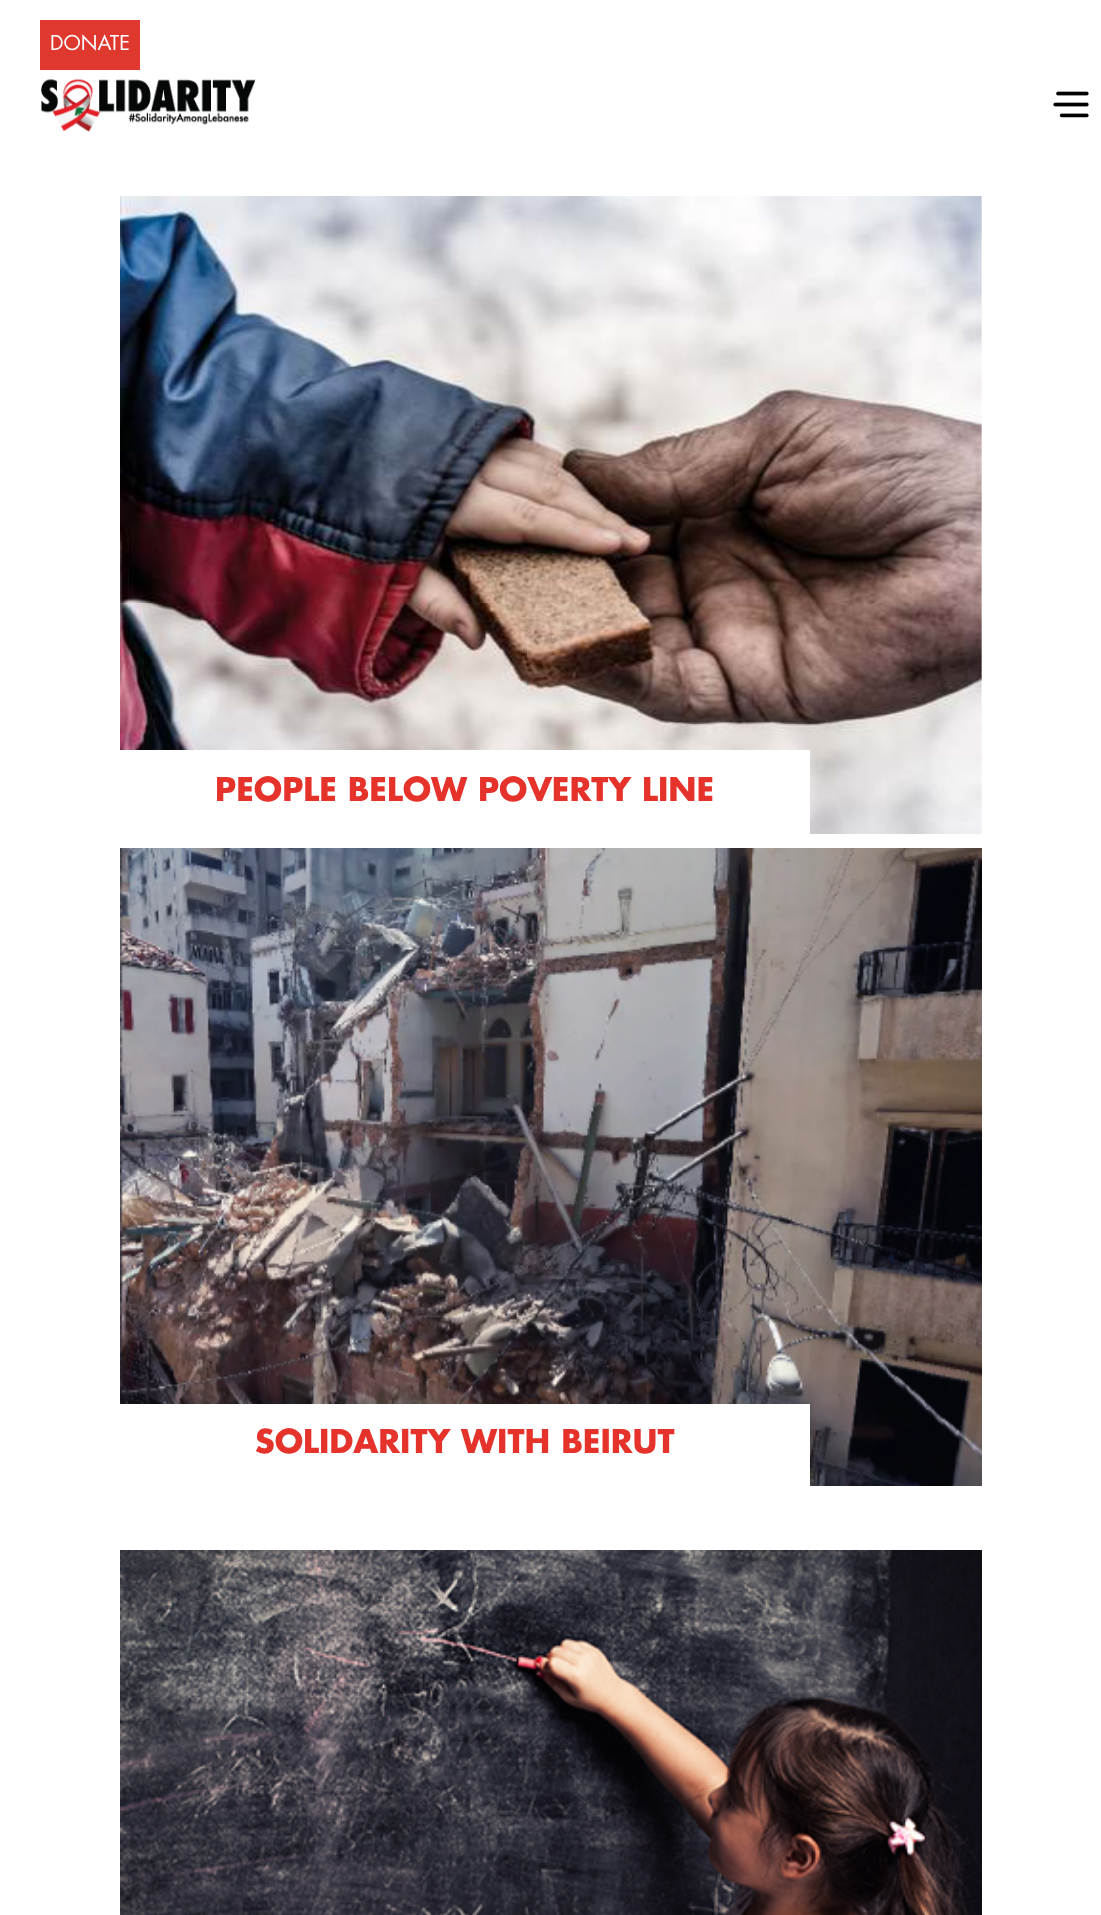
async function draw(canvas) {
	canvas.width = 1101;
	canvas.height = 1915;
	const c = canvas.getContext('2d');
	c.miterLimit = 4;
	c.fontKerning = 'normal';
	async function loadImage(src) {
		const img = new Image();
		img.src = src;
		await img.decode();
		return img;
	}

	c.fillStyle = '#fff';
	c.fillRect(0, 0, 1101, 1915);
	c.fillStyle = '#de382f';
	c.fillRect(40, 20, 100, 50);
	c.font = '20px Futura';
	c.fillStyle = '#fff';
	c.fillText('DONATE', 50, 50);
	c.drawImage(await loadImage('img1.png'), 41, 79, 215, 53);
	c.drawImage(await loadImage('img2.png'), 1053, 91, 36, 27);
	c.drawImage(await loadImage('img3.png'), 120, 196, 862, 638);
	c.fillRect(120, 750, 690, 84);
	c.font = 'bold 32px Futura';
	c.fillStyle = '#e5322b';
	c.fillText('PEOPLE BELOW POVERTY LINE', 215, 801);
	c.drawImage(await loadImage('img4.png'), 120, 848, 862, 638);
	c.fillStyle = '#fff';
	c.fillRect(120, 1404, 690, 82);
	c.fillStyle = '#e5322b';
	c.fillText('SOLIDARITY WITH BEIRUT', 255, 1453);
	c.drawImage(await loadImage('img5.png'), 120, 1550, 862, 365);
}

draw(document.querySelector('canvas'));
